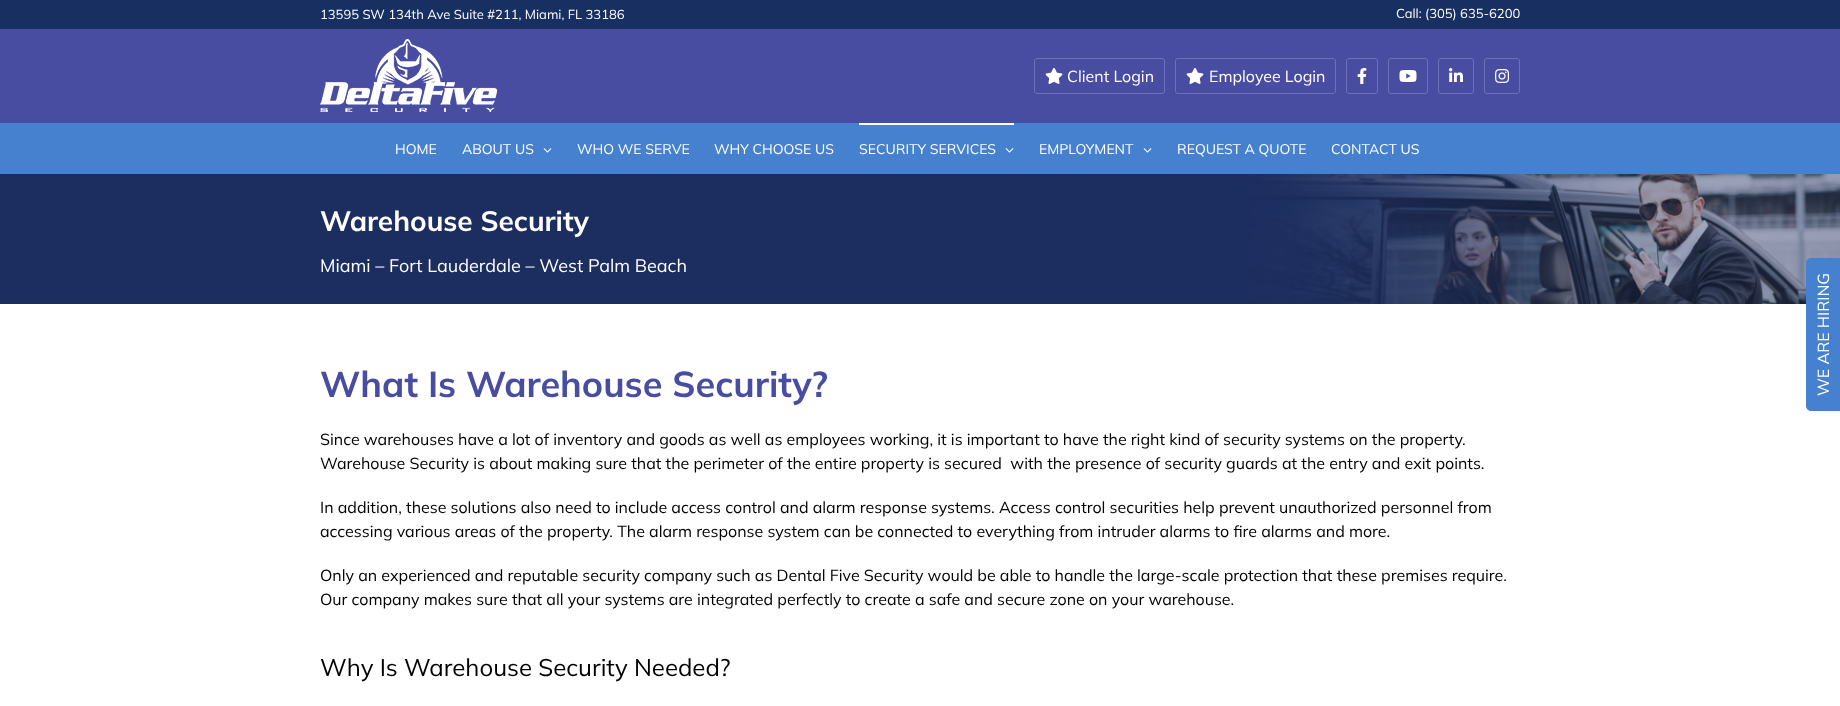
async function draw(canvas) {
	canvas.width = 1840;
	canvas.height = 706;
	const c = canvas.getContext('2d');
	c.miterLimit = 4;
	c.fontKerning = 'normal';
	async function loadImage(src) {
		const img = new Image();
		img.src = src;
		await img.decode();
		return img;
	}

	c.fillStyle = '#fff';
	c.fillRect(0, 0, 1840, 706);
	c.fillStyle = '#182f61';
	c.fillRect(0, 0, 1840, 29);
	c.font = '13px Mulish';
	c.fillStyle = '#fff';
	c.fillText('13595 SW 134th Ave Suite #211, Miami, FL 33186', 320, 19);
	c.fillText('Call: (305) 635-6200', 1396, 18);
	c.fillStyle = '#484da2';
	c.fillRect(0, 29, 1840, 94);
	c.drawImage(await loadImage('img1.png'), 320, 39, 177, 73);
	c.beginPath();
	c.roundRect(1034.5, 58.5, 130, 35, 2.5);
	c.strokeStyle = '#6d71b5';
	c.stroke();
	c.drawImage(await loadImage('img2.png'), 1045, 68, 18, 16);
	c.font = '16px Mulish';
	c.fillStyle = '#fff';
	c.fillText('Client Login', 1067, 82);
	c.beginPath();
	c.roundRect(1175.5, 58.5, 160, 35, 2.5);
	c.stroke();
	c.drawImage(await loadImage('img2.png'), 1186, 68, 18, 16);
	c.fillText('Employee Login', 1209, 82);
	c.beginPath();
	c.roundRect(1346.5, 58.5, 31, 35, 2.5);
	c.stroke();
	c.drawImage(await loadImage('img3.png'), 1357, 68, 10, 16);
	c.beginPath();
	c.roundRect(1388.5, 58.5, 39, 35, 2.5);
	c.stroke();
	c.drawImage(await loadImage('img4.png'), 1399, 70, 18, 12);
	c.beginPath();
	c.roundRect(1438.5, 58.5, 35, 35, 2.5);
	c.stroke();
	c.drawImage(await loadImage('img5.png'), 1449, 68, 14, 14);
	c.beginPath();
	c.roundRect(1484.5, 58.5, 35, 35, 2.5);
	c.stroke();
	c.drawImage(await loadImage('img6.png'), 1495, 69, 15, 14);
	c.fillStyle = '#4681cf';
	c.fillRect(0, 123, 1840, 51);
	c.font = '14px Mulish';
	c.fillStyle = '#fff';
	c.fillText('HOME', 395, 154);
	c.fillText('ABOUT US', 462, 154);
	c.drawImage(await loadImage('img7.png'), 543, 148, 9, 5);
	c.fillText('WHO WE SERVE', 577, 154);
	c.fillText('WHY CHOOSE US', 714, 154);
	c.fillRect(859, 123, 155, 2);
	c.fillText('SECURITY SERVICES', 859, 154);
	c.drawImage(await loadImage('img7.png'), 1005, 148, 9, 5);
	c.fillText('EMPLOYMENT', 1039, 154);
	c.drawImage(await loadImage('img7.png'), 1143, 148, 9, 5);
	c.fillText('REQUEST A QUOTE', 1177, 154);
	c.fillText('CONTACT US', 1331, 154);
	c.drawImage(await loadImage('img8.png'), 0, 174, 1840, 130);
	c.font = 'bold 28px Mulish';
	c.fillText('Warehouse Security', 320, 231);
	c.font = '18px Mulish';
	c.fillText('Miami – Fort Lauderdale – West Palm Beach', 320, 272);
	c.fillStyle = '#4681cf';
	c.beginPath();
	c.moveTo(1806, 406);
	c.lineTo(1806, 263);
	c.bezierCurveTo(1806, 260, 1809, 258, 1811, 258);
	c.lineTo(1840, 258);
	c.lineTo(1840, 411);
	c.lineTo(1811, 411);
	c.bezierCurveTo(1809, 411, 1806, 409, 1806, 406);
	c.closePath();
	c.fill();
	c.font = '16px Mulish';
	c.fillStyle = '#fff';
	c.save();
	c.translate(1829, 396);
	c.rotate(-90 * Math.PI / 180);
	c.fillText('WE ARE HIRING', 0, 0);
	c.restore();
	c.font = 'bold 36px Mulish';
	c.fillStyle = '#484da2';
	c.fillText('What Is Warehouse Security?', 320, 397);
	c.font = '16px Mulish';
	c.fillStyle = '#000';
	for (const [text, x, y] of [
		['Since warehouses have a lot of inventory and goods as well as employees working, it is important to have the right kind of security systems on the property.', 320, 445],
		['Warehouse Security is about making sure that the perimeter of the entire property is secured  with the presence of security guards at the entry and exit points.', 320, 469],
		['In addition, these solutions also need to include access control and alarm response systems. Access control securities help prevent unauthorized personnel from', 320, 513],
		['accessing various areas of the property. The alarm response system can be connected to everything from intruder alarms to fire alarms and more.', 320, 537],
		['Only an experienced and reputable security company such as Dental Five Security would be able to handle the large-scale protection that these premises require.', 320, 581],
		['Our company makes sure that all your systems are integrated perfectly to create a safe and secure zone on your warehouse.', 320, 605],
	]) {
		c.fillText(text, x, y);
	}
	c.font = '24px Mulish';
	c.fillText('Why Is Warehouse Security Needed?', 320, 676);
}

draw(document.querySelector('canvas'));
